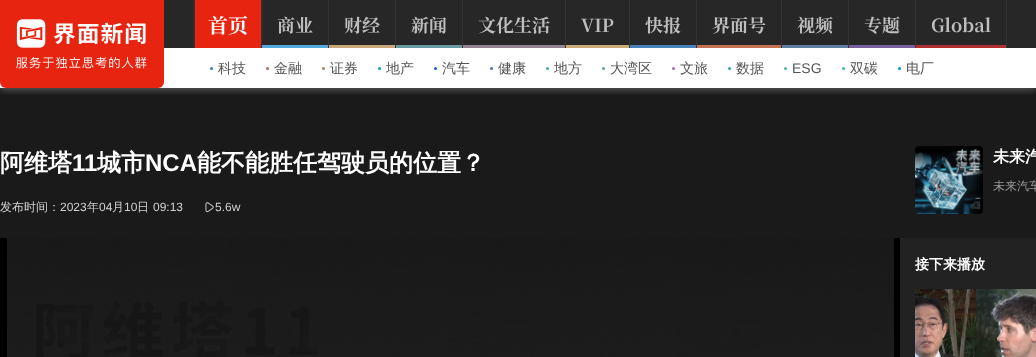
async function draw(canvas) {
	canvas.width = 1036;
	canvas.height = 357;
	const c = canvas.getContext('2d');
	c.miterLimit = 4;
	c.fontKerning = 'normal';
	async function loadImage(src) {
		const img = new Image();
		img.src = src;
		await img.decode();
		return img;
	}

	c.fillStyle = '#fff';
	c.fillRect(0, 0, 1036, 357);
	c.fillStyle = '#1a1a1a';
	c.fillRect(0, 88, 1036, 150);
	c.save();
	c.beginPath();
	c.rect(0, 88, 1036, 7);
	c.clip();
	c.fillStyle = '#dbdbdb54';
	c.filter = 'blur(3.5px)';
	c.beginPath();
	c.rect(0, 2, 1036, 88);
	c.fill();
	c.filter = 'none';
	c.restore();
	c.fillStyle = '#e72410';
	c.beginPath();
	c.roundRect(0, 0, 164, 88, [0, 0, 6, 6]);
	c.fill();
	c.drawImage(await loadImage('img1.png'), 16, 19, 131, 50);
	for (const [x, y, w, h, color] of [
		[164, 0, 872, 48, '#272727'],
		[261, 0, 1, 48, '#343434'],
		[194, 0, 1, 48, '#343434'],
		[195, 0, 66, 48, '#e72410'],
	]) {
		c.fillStyle = color;
		c.fillRect(x, y, w, h);
	}
	c.font = 'bold 20px Noto Serif SC';
	c.fillStyle = '#fff';
	c.fillText('首页', 208, 33);
	c.fillStyle = '#2c85c9';
	c.beginPath();
	c.arc(211.5, 68.5, 1.5, 0, 2 * Math.PI);
	c.fill();
	c.font = '500 14px WenQuanYi Zen Hei';
	c.fillStyle = '#555';
	c.fillText('科技', 218, 73);
	c.fillStyle = '#b56a58';
	c.beginPath();
	c.arc(267.5, 68.5, 1.5, 0, 2 * Math.PI);
	c.fill();
	c.fillStyle = '#555';
	c.fillText('金融', 274, 73);
	c.fillStyle = '#ac7a64';
	c.beginPath();
	c.arc(323.5, 68.5, 1.5, 0, 2 * Math.PI);
	c.fill();
	c.fillStyle = '#555';
	c.fillText('证券', 330, 73);
	c.fillStyle = '#159cbb';
	c.beginPath();
	c.arc(379.5, 68.5, 1.5, 0, 2 * Math.PI);
	c.fill();
	c.fillStyle = '#555';
	c.fillText('地产', 386, 73);
	c.fillStyle = '#1961c4';
	c.beginPath();
	c.arc(435.5, 68.5, 1.5, 0, 2 * Math.PI);
	c.fill();
	c.fillStyle = '#555';
	c.fillText('汽车', 442, 73);
	c.fillStyle = '#4c6eb5';
	c.beginPath();
	c.arc(491.5, 68.5, 1.5, 0, 2 * Math.PI);
	c.fill();
	c.fillStyle = '#555';
	c.fillText('健康', 498, 73);
	c.fillStyle = '#42a9ad';
	c.beginPath();
	c.arc(547.5, 68.5, 1.5, 0, 2 * Math.PI);
	c.fill();
	c.fillStyle = '#555';
	c.fillText('地方', 554, 73);
	c.fillStyle = '#51a3b0';
	c.beginPath();
	c.arc(603.5, 68.5, 1.5, 0, 2 * Math.PI);
	c.fill();
	c.fillStyle = '#555';
	c.fillText('大湾区', 610, 73);
	c.fillStyle = '#9775a6';
	c.beginPath();
	c.arc(673.5, 68.5, 1.5, 0, 2 * Math.PI);
	c.fill();
	c.fillStyle = '#555';
	c.fillText('文旅', 680, 73);
	c.fillStyle = '#37a0b0';
	c.beginPath();
	c.arc(729.5, 68.5, 1.5, 0, 2 * Math.PI);
	c.fill();
	c.fillStyle = '#555';
	c.fillText('数据', 736, 73);
	c.fillStyle = '#42b7a3';
	c.beginPath();
	c.arc(785.5, 68.5, 1.5, 0, 2 * Math.PI);
	c.fill();
	c.font = '14px Liberation Sans';
	c.fillStyle = '#555';
	c.fillText('ESG', 792, 73);
	c.fillStyle = '#42b7a3';
	c.beginPath();
	c.arc(843.5, 68.5, 1.5, 0, 2 * Math.PI);
	c.fill();
	c.font = '500 14px WenQuanYi Zen Hei';
	c.fillStyle = '#555';
	c.fillText('双碳', 850, 73);
	c.fillStyle = '#1a8fd6';
	c.beginPath();
	c.arc(899.5, 68.5, 1.5, 0, 2 * Math.PI);
	c.fill();
	c.fillStyle = '#555';
	c.fillText('电厂', 906, 73);
	c.fillStyle = '#343434';
	c.fillRect(328, 0, 1, 48);
	c.font = 'bold 18px Noto Serif SC';
	c.fillStyle = '#bebebe';
	c.fillText('商业', 277, 32);
	c.fillStyle = '#51a8dd';
	c.fillRect(262, 45, 66, 3);
	c.fillStyle = '#343434';
	c.fillRect(395, 0, 1, 48);
	c.fillStyle = '#bebebe';
	c.fillText('财经', 344, 32);
	c.fillStyle = '#c8a87b';
	c.fillRect(329, 45, 66, 3);
	c.fillStyle = '#343434';
	c.fillRect(462, 0, 1, 48);
	c.fillStyle = '#bebebe';
	c.fillText('新闻', 411, 32);
	c.fillStyle = '#6699a1';
	c.fillRect(396, 45, 66, 3);
	c.fillStyle = '#343434';
	c.fillRect(565, 0, 1, 48);
	c.fillStyle = '#bebebe';
	c.fillText('文化生活', 478, 32);
	c.fillStyle = '#938390';
	c.fillRect(463, 45, 102, 3);
	c.fillStyle = '#343434';
	c.fillRect(629, 0, 1, 48);
	c.fillStyle = '#bebebe';
	c.fillText('VIP', 581, 32);
	c.fillStyle = '#ccaa75';
	c.fillRect(566, 45, 63, 3);
	c.fillStyle = '#343434';
	c.fillRect(696, 0, 1, 48);
	c.fillStyle = '#bebebe';
	c.fillText('快报', 645, 32);
	c.fillStyle = '#4580bb';
	c.fillRect(630, 45, 66, 3);
	c.fillStyle = '#343434';
	c.fillRect(781, 0, 1, 48);
	c.fillStyle = '#bebebe';
	c.fillText('界面号', 712, 32);
	c.fillStyle = '#c47151';
	c.fillRect(697, 45, 84, 3);
	c.fillStyle = '#343434';
	c.fillRect(848, 0, 1, 48);
	c.fillStyle = '#bebebe';
	c.fillText('视频', 797, 32);
	c.fillStyle = '#5f7ea6';
	c.fillRect(782, 45, 66, 3);
	c.fillStyle = '#343434';
	c.fillRect(915, 0, 1, 48);
	c.fillStyle = '#bebebe';
	c.fillText('专题', 864, 32);
	c.fillStyle = '#765f9c';
	c.fillRect(849, 45, 66, 3);
	c.fillStyle = '#343434';
	c.fillRect(1006, 0, 1, 48);
	c.fillStyle = '#bebebe';
	c.fillText('Global', 931, 32);
	c.fillStyle = '#b22f2f';
	c.fillRect(916, 45, 90, 3);
	c.font = 'bold 24px WenQuanYi Zen Hei';
	c.fillStyle = '#fff';
	c.fillText('阿维塔', 0, 171);
	c.font = 'bold 24px Liberation Sans';
	c.fillText('11', 72, 171);
	c.font = 'bold 24px WenQuanYi Zen Hei';
	c.fillText('城市', 97, 171);
	c.font = 'bold 24px Liberation Sans';
	c.fillText('NCA', 145, 171);
	c.font = 'bold 24px WenQuanYi Zen Hei';
	c.fillText('能不能胜任驾驶员的位置？', 197, 171);
	c.font = '500 12px WenQuanYi Zen Hei';
	c.fillStyle = '#d1d1d1';
	c.fillText('发布时间：', 0, 211);
	c.font = '12px Liberation Sans';
	c.fillText('2023', 60, 211);
	c.font = '500 12px WenQuanYi Zen Hei';
	c.fillText('年', 87, 211);
	c.font = '12px Liberation Sans';
	c.fillText('04', 99, 211);
	c.font = '500 12px WenQuanYi Zen Hei';
	c.fillText('月', 112, 211);
	c.font = '12px Liberation Sans';
	c.fillText('10', 124, 211);
	c.font = '500 12px WenQuanYi Zen Hei';
	c.fillText('日', 137, 211);
	c.font = '12px Liberation Sans';
	c.fillText('09:13', 153, 211);
	c.drawImage(await loadImage('img2.png'), 205, 202, 9, 11);
	c.fillText('5.6w', 215, 211);
	c.drawImage(await loadImage('img3.png'), 915, 146, 68, 68);
	c.font = 'bold 16px WenQuanYi Zen Hei';
	c.fillStyle = '#fff';
	c.fillText('未来汽', 993, 162);
	c.font = '500 12px WenQuanYi Zen Hei';
	c.fillStyle = '#999';
	c.fillText('未来汽车', 993, 190);
	c.fillStyle = '#222';
	c.fillRect(900, 238, 136, 119);
	c.fillStyle = '#000';
	c.fillRect(0, 238, 900, 119);
	c.drawImage(await loadImage('img4.png'), 7, 238, 887, 119);
	c.font = 'bold 14px WenQuanYi Zen Hei';
	c.fillStyle = '#fff';
	c.fillText('接下来播放', 915, 269);
	c.drawImage(await loadImage('img5.png'), 915, 289, 121, 68);
}

draw(document.querySelector('canvas'));
